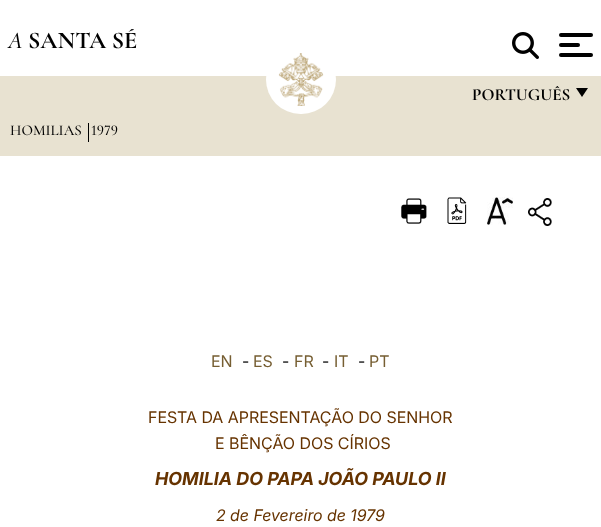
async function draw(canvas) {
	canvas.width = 601;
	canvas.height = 527;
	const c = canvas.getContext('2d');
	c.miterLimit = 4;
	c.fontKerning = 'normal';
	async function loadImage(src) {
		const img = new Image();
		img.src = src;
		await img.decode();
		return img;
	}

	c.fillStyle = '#fff';
	c.fillRect(0, 0, 601, 527);
	c.font = 'italic 500 24px Cormorant Garamond';
	c.fillStyle = '#000';
	c.fillText('A', 8, 48);
	c.font = 'bold 24px Cormorant Garamond';
	c.fillText('SANTA SÉ', 28, 48);
	c.fillStyle = '#e8e2d1';
	c.fillRect(0, 76, 601, 80);
	c.fillStyle = '#fff';
	c.beginPath();
	c.roundRect(266, 45, 70, 69, 34.5);
	c.fill();
	c.drawImage(await loadImage('img1.png'), 278, 53, 46, 53);
	c.drawImage(await loadImage('img2.png'), 512, 32, 27, 27);
	c.fillStyle = '#000';
	c.beginPath();
	c.roundRect(559, 33, 34, 4, 2);
	c.fill();
	c.beginPath();
	c.roundRect(559, 43, 21, 4, 2);
	c.fill();
	c.beginPath();
	c.roundRect(559, 53, 34, 4, 2);
	c.fill();
	c.font = 'bold 17px Cormorant Garamond';
	c.fillText('PORTUGUÊS', 472, 100);
	c.beginPath();
	c.moveTo(576, 88);
	c.lineTo(588, 88);
	c.lineTo(582, 97);
	c.closePath();
	c.fill();
	c.font = '500 15px Cormorant Garamond';
	c.fillText('HOMILIAS', 10, 135);
	c.fillRect(88, 123, 1, 19);
	c.font = '500 15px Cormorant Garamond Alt';
	c.fillText('1979', 91, 135);
	c.drawImage(await loadImage('img3.png'), 401, 198, 26, 26);
	c.drawImage(await loadImage('img4.png'), 447, 197, 20, 27);
	c.drawImage(await loadImage('img5.png'), 487, 197, 26, 28);
	c.drawImage(await loadImage('img6.png'), 528, 198, 24, 28);
	c.font = '16px Inter';
	c.fillStyle = '#765e32';
	c.fillText('EN', 211, 367);
	c.font = '16px "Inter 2"';
	c.fillStyle = '#000';
	c.fillText('-', 242, 367);
	c.font = '16px Inter';
	c.fillStyle = '#765e32';
	c.fillText('ES', 253, 367);
	c.font = '16px "Inter 2"';
	c.fillStyle = '#000';
	c.fillText('-', 282, 367);
	c.font = '16px Inter';
	c.fillStyle = '#765e32';
	c.fillText('FR', 294, 367);
	c.font = '16px "Inter 2"';
	c.fillStyle = '#000';
	c.fillText('-', 322, 367);
	c.fillStyle = '#765e32';
	c.fillText('IT', 334, 367);
	c.fillStyle = '#000';
	c.fillText('-', 358, 367);
	c.fillStyle = '#765e32';
	c.fillText('PT', 369, 367);
	c.fillStyle = '#630';
	c.fillText('FESTA DA APRESENTAÇÃO DO SENHOR', 148, 423);
	c.fillText('E BÊNÇÃO DOS CÍRIOS', 215, 449);
	c.font = 'italic bold 18px Inter';
	c.fillText('HOMILIA DO PAPA JOÃO PAULO II', 155, 485);
	c.font = 'italic 16px Inter';
	c.fillText('2 de Fevereiro de 1979', 216, 521);
}

draw(document.querySelector('canvas'));
